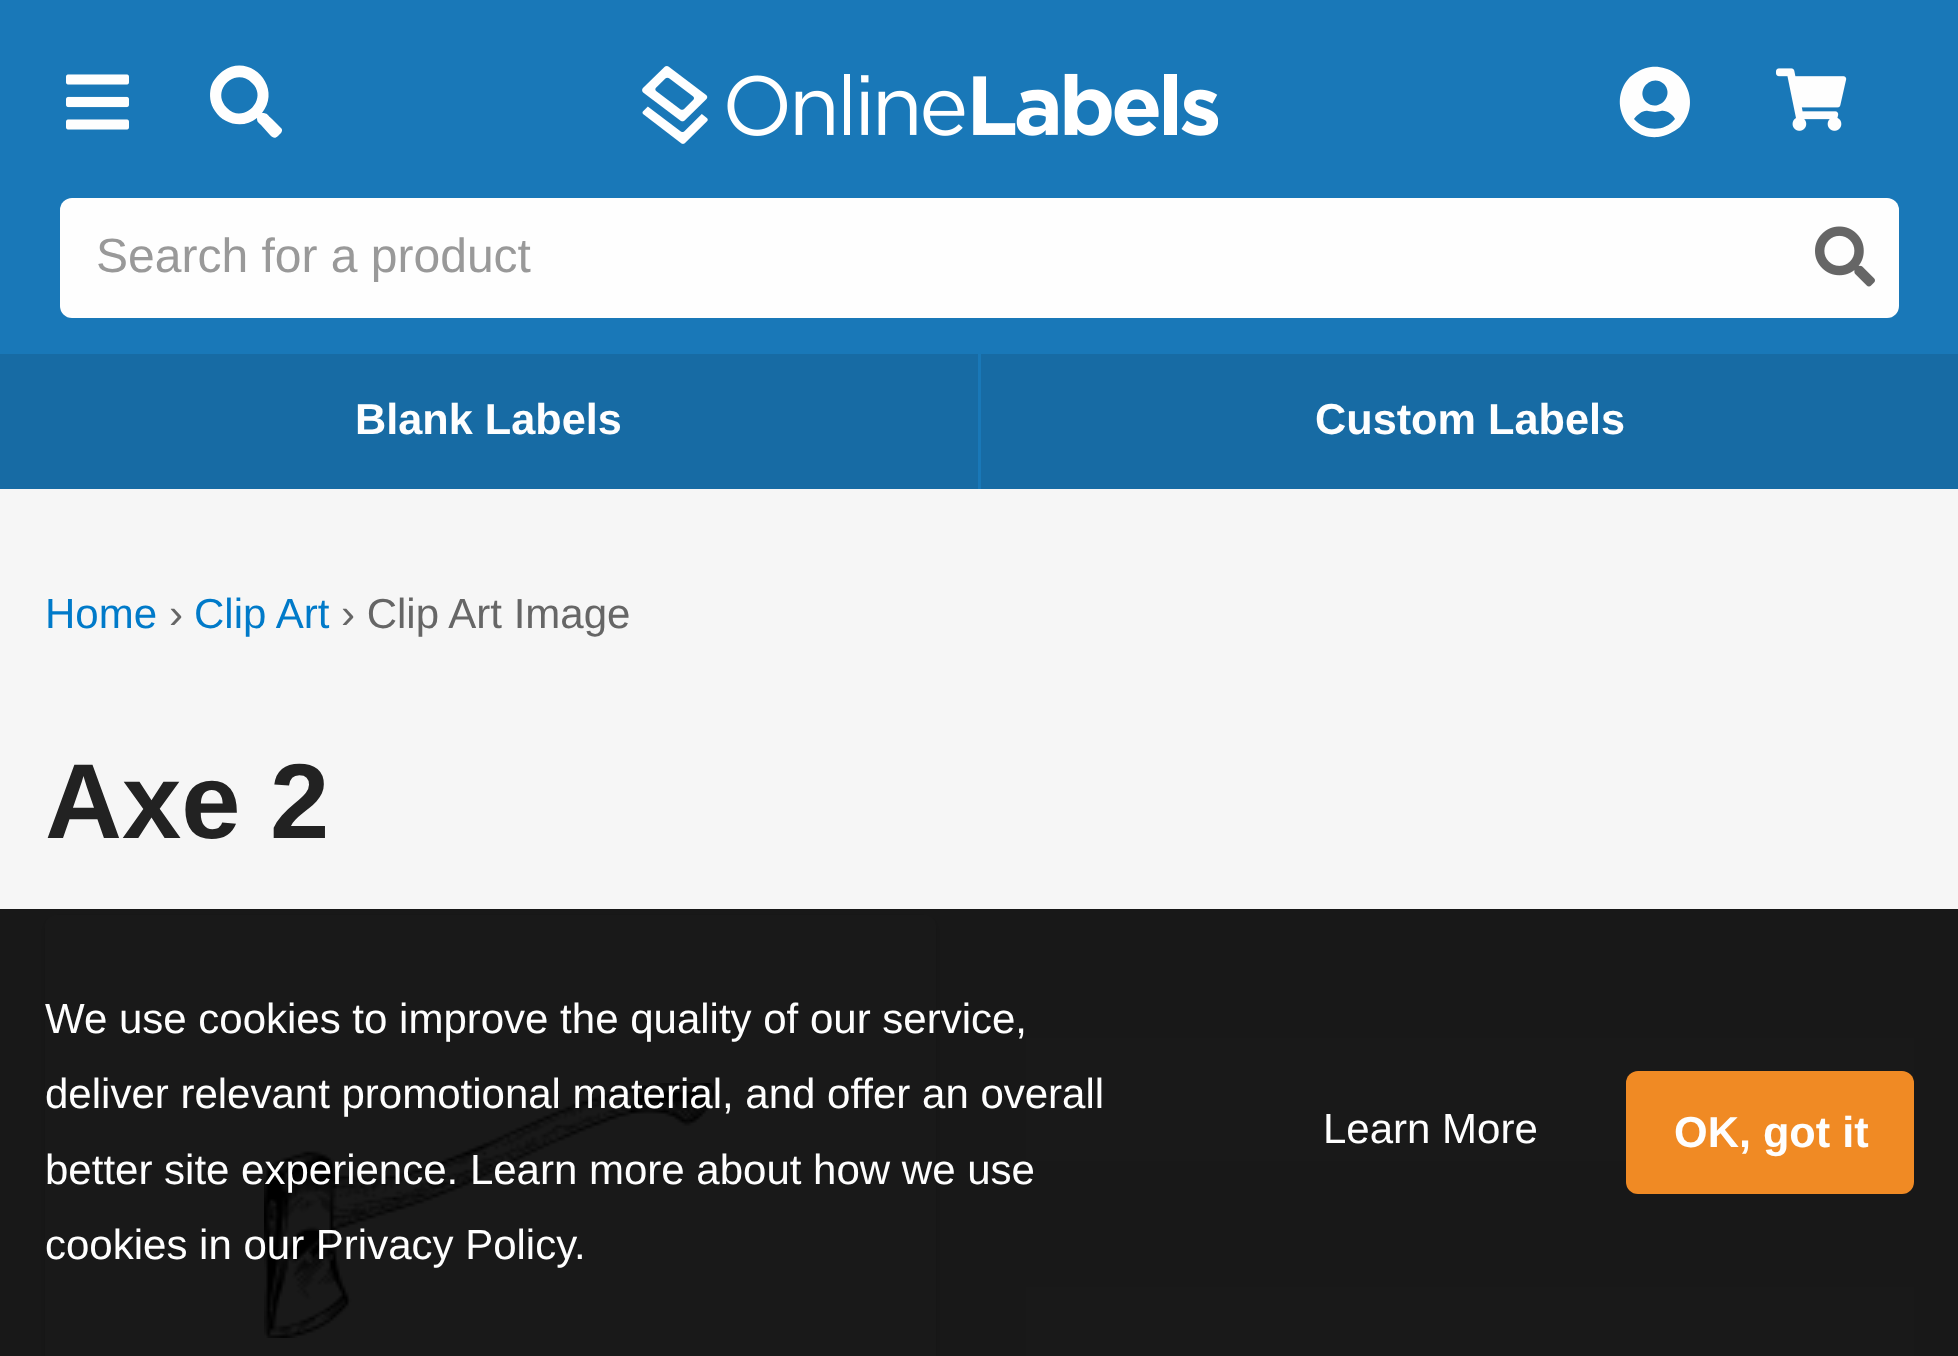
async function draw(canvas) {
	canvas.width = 1958;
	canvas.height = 1356;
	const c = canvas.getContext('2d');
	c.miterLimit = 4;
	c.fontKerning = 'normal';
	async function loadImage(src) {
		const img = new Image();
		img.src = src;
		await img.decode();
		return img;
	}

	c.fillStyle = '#f6f6f6';
	c.fillRect(0, 0, 1958, 1356);
	c.fillStyle = '#1978b8';
	c.fillRect(0, 0, 1958, 354);
	c.drawImage(await loadImage('img1.png'), 66, 74, 63, 56);
	c.fillStyle = '#fefefe';
	c.beginPath();
	c.moveTo(281, 128);
	c.bezierCurveTo(284, 131, 280, 134, 278, 136);
	c.bezierCurveTo(275, 139, 273, 138, 270, 135);
	c.lineTo(261, 125);
	c.bezierCurveTo(258, 122, 257, 122, 257, 118);
	c.bezierCurveTo(244, 129, 224, 125, 215, 111);
	c.bezierCurveTo(210, 104, 209, 95, 211, 87);
	c.bezierCurveTo(213, 80, 218, 75, 223, 71);
	c.bezierCurveTo(250, 52, 283, 87, 262, 113);
	c.bezierCurveTo(268, 113, 267, 115, 272, 119);
	c.closePath();
	c.moveTo(227, 108);
	c.bezierCurveTo(243, 125, 269, 99, 252, 83);
	c.bezierCurveTo(235, 66, 210, 91, 227, 108);
	c.closePath();
	c.fill();
	c.drawImage(await loadImage('img2.png'), 642, 66, 576, 78);
	c.beginPath();
	c.moveTo(1630, 77);
	c.bezierCurveTo(1636, 72, 1643, 68, 1651, 67);
	c.bezierCurveTo(1684, 64, 1703, 103, 1680, 127);
	c.bezierCurveTo(1674, 132, 1666, 136, 1658, 137);
	c.bezierCurveTo(1626, 140, 1607, 101, 1630, 77);
	c.closePath();
	c.moveTo(1664, 84);
	c.bezierCurveTo(1652, 73, 1635, 90, 1646, 102);
	c.bezierCurveTo(1658, 113, 1675, 96, 1664, 84);
	c.closePath();
	c.moveTo(1634, 119);
	c.bezierCurveTo(1645, 132, 1665, 132, 1675, 119);
	c.bezierCurveTo(1673, 115, 1667, 110, 1661, 111);
	c.lineTo(1655, 112);
	c.lineTo(1648, 111);
	c.bezierCurveTo(1643, 110, 1637, 115, 1634, 119);
	c.closePath();
	c.fill();
	c.drawImage(await loadImage('img3.png'), 1776, 68, 71, 63);
	c.beginPath();
	c.roundRect(60, 198, 1839, 120, 12);
	c.fill();
	c.font = '48px Liberation Sans';
	c.fillStyle = '#999';
	c.fillText('Search for a product', 96, 272);
	c.drawImage(await loadImage('img4.png'), 1815, 226, 60, 61);
	c.fillStyle = '#176ba4';
	c.fillRect(0, 354, 978, 135);
	c.fillStyle = '#1978b8';
	c.fillRect(978, 354, 3, 135);
	c.font = 'bold 43.25px Liberation Sans';
	c.fillStyle = '#fefefe';
	c.fillText('Blank Labels', 355, 434);
	c.fillStyle = '#176ba4';
	c.fillRect(981, 354, 977, 135);
	c.fillStyle = '#fefefe';
	c.fillText('Custom Labels', 1315, 434);
	c.font = '42px Liberation Sans';
	c.fillStyle = '#007ac9';
	c.fillText('Home', 45, 628);
	c.fillStyle = '#666';
	c.fillText('›', 169, 628);
	c.fillStyle = '#007ac9';
	c.fillText('Clip Art', 194, 628);
	c.fillStyle = '#666';
	c.fillText('› Clip Art Image', 341, 628);
	c.font = 'bold 106.5px Liberation Sans';
	c.fillStyle = '#222';
	c.fillText('Axe 2', 45, 838);
	c.fillStyle = '#00000033';
	c.filter = 'blur(4.5px)';
	c.beginPath();
	c.roundRect(45, 918, 891, 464, 12);
	c.fill();
	c.filter = 'none';
	c.fillStyle = '#fefefe';
	c.beginPath();
	c.roundRect(45, 915, 891, 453, 12);
	c.fill();
	c.drawImage(await loadImage('img5.png'), 264, 1083, 450, 255);
	for (const [x, y, w, h, color] of [
		[1026, 1038, 888, 123, '#fefefe'],
		[1026, 1287, 888, 69, '#fefefe'],
		[0, 909, 1958, 447, '#000000e6'],
	]) {
		c.fillStyle = color;
		c.fillRect(x, y, w, h);
	}
	c.font = '42px Liberation Sans';
	c.fillStyle = '#fefefe';
	for (const [text, x, y] of [
		['We use cookies to improve the quality of our service,', 45, 1033],
		['deliver relevant promotional material, and offer an overall', 45, 1108],
		['better site experience. Learn more about how we use', 45, 1184],
		['cookies in our Privacy Policy.', 45, 1259],
		['Learn More', 1323, 1143],
	]) {
		c.fillText(text, x, y);
	}
	c.fillStyle = '#f08a24';
	c.beginPath();
	c.roundRect(1626, 1071, 288, 123, 12);
	c.fill();
	c.font = 'bold 43.25px Liberation Sans';
	c.fillStyle = '#fefefe';
	c.fillText('OK, got it', 1674, 1147);
}

draw(document.querySelector('canvas'));
